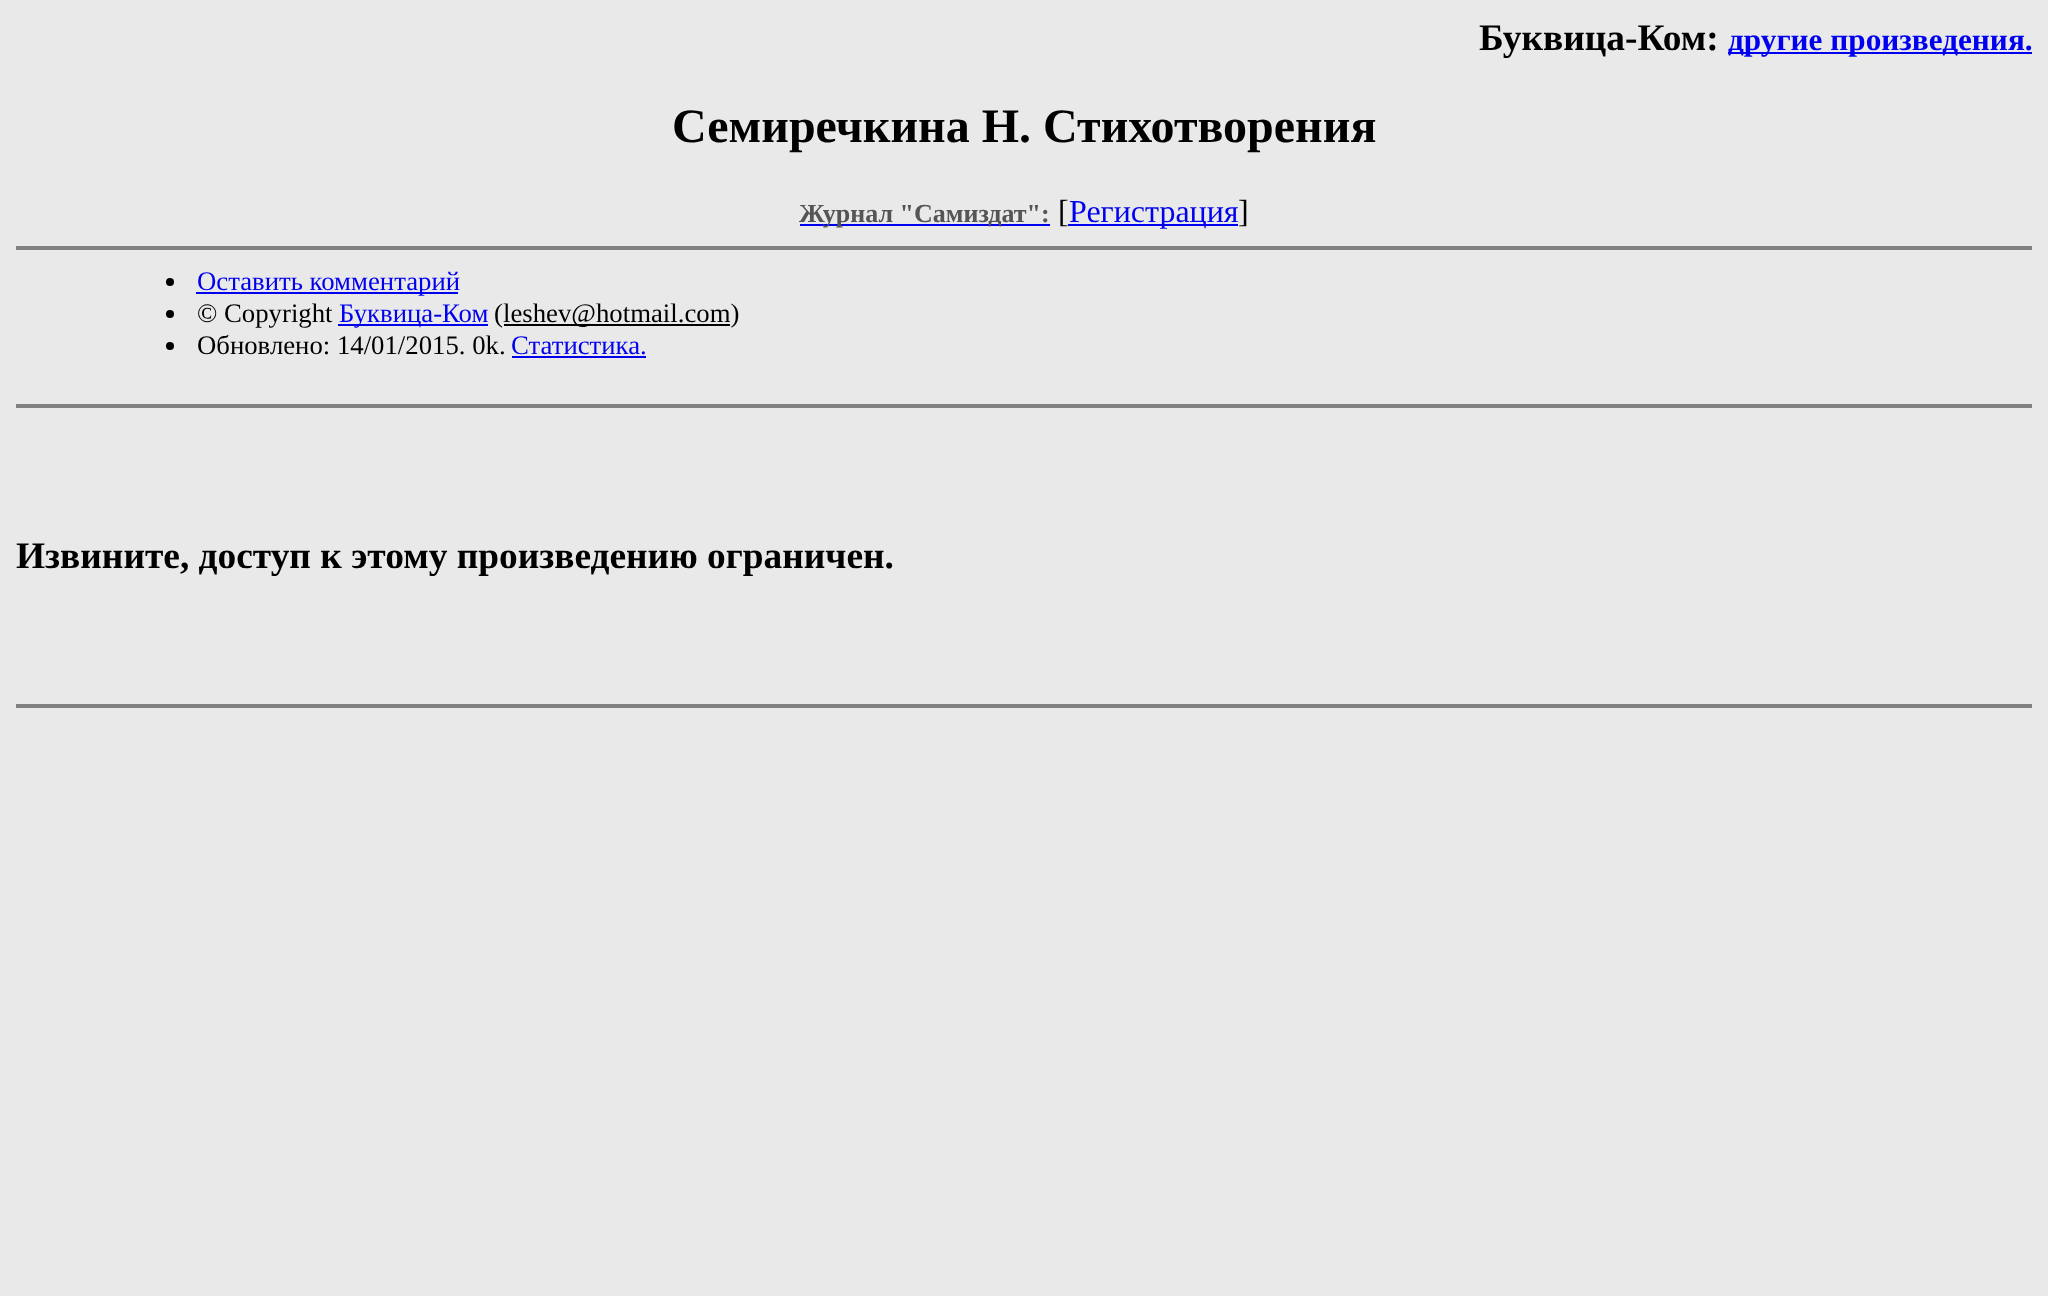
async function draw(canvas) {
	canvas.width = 2048;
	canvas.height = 1296;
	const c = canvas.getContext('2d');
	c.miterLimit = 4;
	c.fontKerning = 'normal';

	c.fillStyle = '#e9e9e9';
	c.fillRect(0, 0, 2048, 1296);
	c.font = 'bold 37.4px Liberation Serif';
	c.fillStyle = '#000';
	c.fillText('Буквица-Ком:', 1479, 50);
	c.fillStyle = '#00e';
	c.fillRect(1728, 52, 304, 2);
	c.font = 'bold 31.25px Liberation Serif';
	c.fillText('другие произведения.', 1728, 50);
	c.font = 'bold 48px Liberation Serif';
	c.fillStyle = '#000';
	c.fillText('Семиречкина Н. Стихотворения', 672, 142);
	c.fillStyle = '#00e';
	c.fillRect(800, 224, 250, 2);
	c.font = 'bold 26px Liberation Serif';
	c.fillStyle = '#555';
	c.fillText('Журнал "Самиздат":', 799, 222);
	c.font = '32px Liberation Serif';
	c.fillStyle = '#000';
	c.fillText('[', 1058, 222);
	c.fillStyle = '#00e';
	c.fillRect(1068, 224, 170, 2);
	c.fillText('Регистрация', 1069, 222);
	c.fillStyle = '#000';
	c.fillText(']', 1238, 222);
	c.fillStyle = '#808080';
	c.fillRect(16, 246, 2016, 4);
	c.fillStyle = '#000';
	c.beginPath();
	c.arc(170, 282, 4, 0, 2 * Math.PI);
	c.fill();
	c.fillStyle = '#00e';
	c.fillRect(196, 292, 262, 2);
	c.font = '26.75px Liberation Serif';
	c.fillText('Оставить комментарий', 197, 290);
	c.fillStyle = '#000';
	c.beginPath();
	c.arc(170, 314, 4, 0, 2 * Math.PI);
	c.fill();
	c.fillText('© Copyright', 197, 322);
	c.fillStyle = '#00e';
	c.fillRect(338, 324, 150, 2);
	c.fillText('Буквица-Ком', 339, 322);
	c.fillStyle = '#000';
	c.fillText('(', 494, 322);
	c.fillRect(504, 324, 226, 2);
	c.fillText('leshev@hotmail.com)', 503, 322);
	c.beginPath();
	c.arc(170, 346, 4, 0, 2 * Math.PI);
	c.fill();
	c.fillText('Обновлено: 14/01/2015. 0k.', 197, 354);
	c.fillStyle = '#00e';
	c.fillText('Статистика.', 511, 354);
	c.fillRect(512, 356, 134, 2);
	c.fillStyle = '#808080';
	c.fillRect(16, 404, 2016, 4);
	c.font = 'bold 37.4px Liberation Serif';
	c.fillStyle = '#000';
	c.fillText('Извините, доступ к этому произведению ограничен.', 16, 568);
	c.fillStyle = '#808080';
	c.fillRect(16, 704, 2016, 4);
}

draw(document.querySelector('canvas'));
